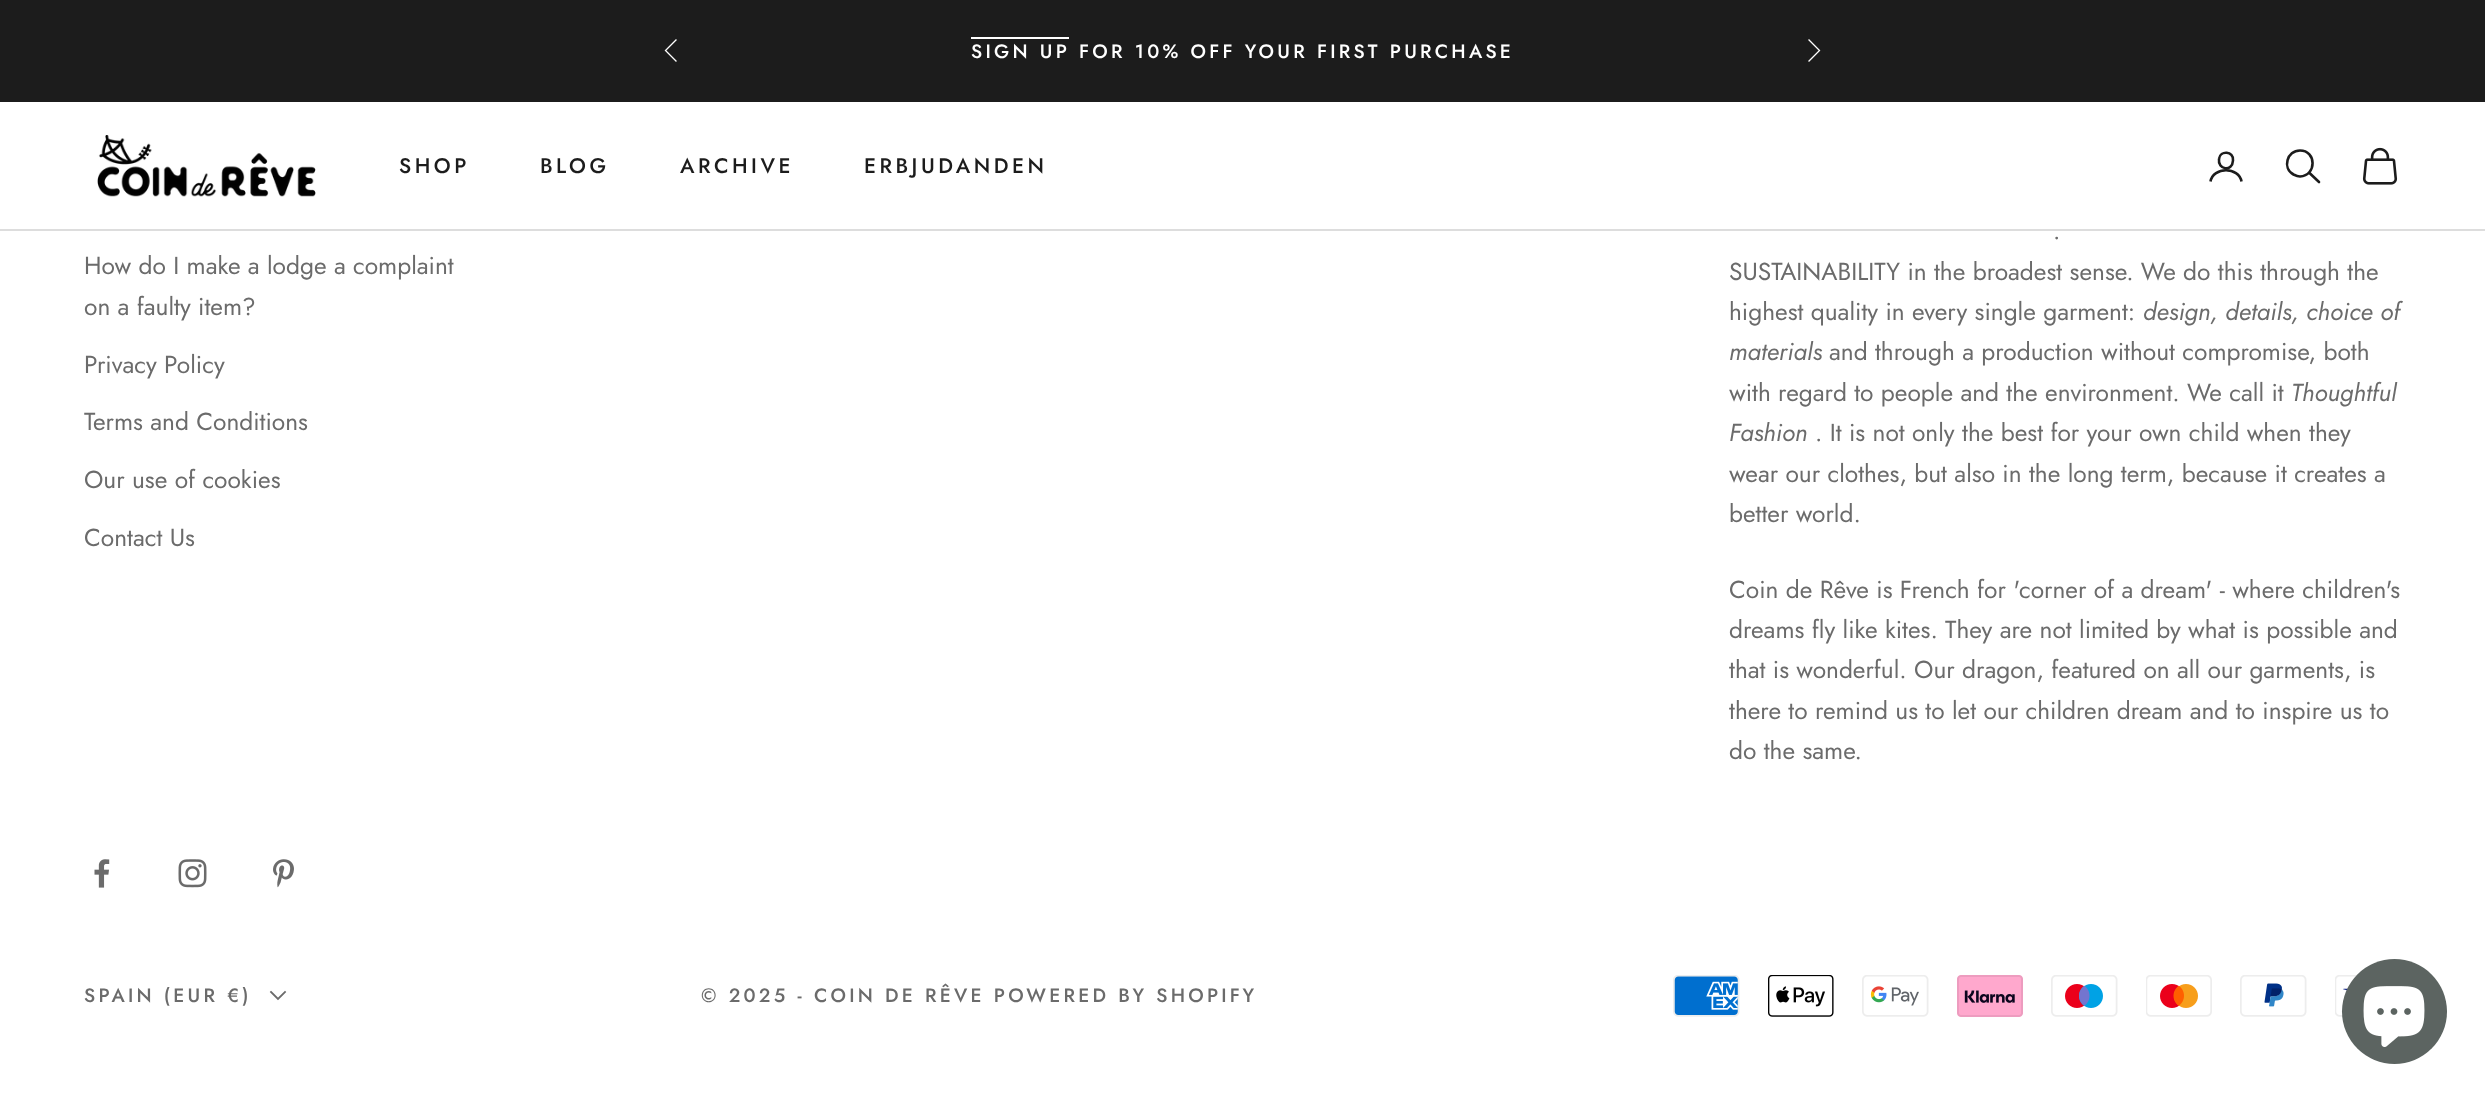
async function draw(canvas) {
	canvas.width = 2485;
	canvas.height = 1100;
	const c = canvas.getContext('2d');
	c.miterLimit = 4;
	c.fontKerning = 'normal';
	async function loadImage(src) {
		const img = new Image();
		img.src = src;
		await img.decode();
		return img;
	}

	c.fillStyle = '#fff';
	c.fillRect(0, 0, 2485, 1100);
	c.fillStyle = '#1c1c1c';
	c.fillRect(0, 0, 2485, 102);
	c.beginPath();
	c.moveTo(676, 40);
	c.lineTo(665.5, 50.5);
	c.lineTo(676, 61);
	c.strokeStyle = '#fff';
	c.lineWidth = 1.3;
	c.lineCap = 'square';
	c.stroke();
	c.letterSpacing = '3.25px';
	c.font = '500 19.25px Jost';
	c.fillStyle = '#fff';
	c.fillText('SIGN UP FOR 10% OFF YOUR FIRST PURCHASE', 971, 58);
	c.fillRect(971, 37, 98, 2);
	c.beginPath();
	c.moveTo(1809, 61);
	c.lineTo(1819.5, 50.5);
	c.lineTo(1809, 40);
	c.stroke();
	c.fillStyle = '#ddd';
	c.fillRect(0, 229, 2485, 2);
	c.drawImage(await loadImage('img1.png'), 97, 135, 219, 62);
	c.letterSpacing = '3.5px';
	c.font = '500 21px Jost';
	c.fillStyle = '#1c1c1c';
	for (const [text, x, y] of [
		['SHOP', 399, 173],
		['BLOG', 540, 173],
		['ARCHIVE', 680, 173],
		['ERBJUDANDEN', 864, 173],
	]) {
		c.fillText(text, x, y);
	}
	c.beginPath();
	c.moveTo(2233, 160.5);
	c.bezierCurveTo(2232.5, 172, 2217.5, 170, 2219, 159);
	c.bezierCurveTo(2220, 150, 2234, 151, 2233, 160.5);
	c.closePath();
	c.strokeStyle = '#1c1c1c';
	c.lineWidth = 2.6;
	c.lineCap = 'round';
	c.lineJoin = 'round';
	c.stroke();
	c.beginPath();
	c.moveTo(2210.5, 181.5);
	c.bezierCurveTo(2213, 166.5, 2239, 166.5, 2241.5, 181.5);
	c.lineCap = 'butt';
	c.lineJoin = 'miter';
	c.stroke();
	c.beginPath();
	c.moveTo(2300, 150.5);
	c.bezierCurveTo(2287, 150.5, 2282, 168, 2293.5, 174.5);
	c.bezierCurveTo(2295.5, 175.5, 2298, 176.5, 2300, 176.5);
	c.bezierCurveTo(2317, 175.5, 2316.5, 150.5, 2300, 150.5);
	c.closePath();
	c.stroke();
	c.beginPath();
	c.moveTo(2309.5, 173);
	c.lineTo(2319, 182);
	c.lineCap = 'round';
	c.stroke();
	c.drawImage(await loadImage('img2.png'), 2362, 147, 36, 38);
	c.letterSpacing = '0px';
	c.font = '24.5px Jost';
	c.fillStyle = '#6b6b6b';
	for (const [text, x, y] of [
		['How do I make a lodge a complaint', 84, 274],
		['on a faulty item?', 84, 315],
		['Privacy Policy', 84, 373],
		['Terms and Conditions', 84, 430],
		['Our use of cookies', 84, 488],
		['Contact Us', 84, 546],
		['.', 2053, 239],
		['SUSTAINABILITY in the broadest sense. We do this through the', 1729, 280],
		['highest quality in every single garment:', 1729, 320],
	]) {
		c.fillText(text, x, y);
	}
	c.font = 'italic 24.5px Jost';
	c.fillText('design, details, choice of', 2143, 320);
	c.fillText('materials', 1729, 360);
	c.font = '24.5px Jost';
	c.fillText('and through a production without compromise, both', 1829, 360);
	c.fillText('with regard to people and the environment. We call it', 1729, 401);
	c.font = 'italic 24.5px Jost';
	c.fillText('Thoughtful', 2291, 401);
	c.fillText('Fashion', 1729, 441);
	c.font = '24.5px Jost';
	for (const [text, x, y] of [
		['. It is not only the best for your own child when they', 1815, 441],
		['wear our clothes, but also in the long term, because it creates a', 1729, 482],
		['better world.', 1729, 522],
		['Coin de Rêve is French for \'corner of a dream\' - where children\'s', 1729, 598],
		['dreams fly like kites. They are not limited by what is possible and', 1729, 638],
		['that is wonderful. Our dragon, featured on all our garments, is', 1729, 678],
		['there to remind us to let our children dream and to inspire us to', 1729, 719],
		['do the same.', 1729, 759],
	]) {
		c.fillText(text, x, y);
	}
	c.drawImage(await loadImage('img3.png'), 94, 859, 16, 29);
	c.drawImage(await loadImage('img4.png'), 178, 859, 29, 29);
	c.drawImage(await loadImage('img5.png'), 273, 859, 21, 29);
	c.letterSpacing = '3.25px';
	c.font = '500 19.25px Jost';
	c.fillText('SPAIN (EUR €)', 84, 1002);
	c.beginPath();
	c.moveTo(271, 992);
	c.lineTo(278, 999);
	c.lineTo(285, 992);
	c.strokeStyle = '#6b6b6b';
	c.lineWidth = 1.8;
	c.lineCap = 'square';
	c.stroke();
	c.fillText('© 2025 - COIN DE RÊVE POWERED BY SHOPIFY', 701, 1002);
	c.drawImage(await loadImage('img6.png'), 1673, 975, 67, 42);
	c.drawImage(await loadImage('img7.png'), 1768, 975, 66, 42);
	c.drawImage(await loadImage('img8.png'), 1862, 975, 67, 42);
	c.drawImage(await loadImage('img9.png'), 1957, 975, 66, 42);
	c.drawImage(await loadImage('img10.png'), 2051, 975, 67, 42);
	c.drawImage(await loadImage('img11.png'), 2146, 975, 66, 42);
	c.drawImage(await loadImage('img12.png'), 2240, 975, 67, 42);
	c.drawImage(await loadImage('img13.png'), 2335, 975, 22, 42);
	c.fillStyle = '#5c6461';
	c.beginPath();
	c.arc(2394.5, 1011.5, 52.5, 0, 2 * Math.PI);
	c.fill();
	c.drawImage(await loadImage('img14.png'), 2363, 986, 62, 61);
}

draw(document.querySelector('canvas'));
